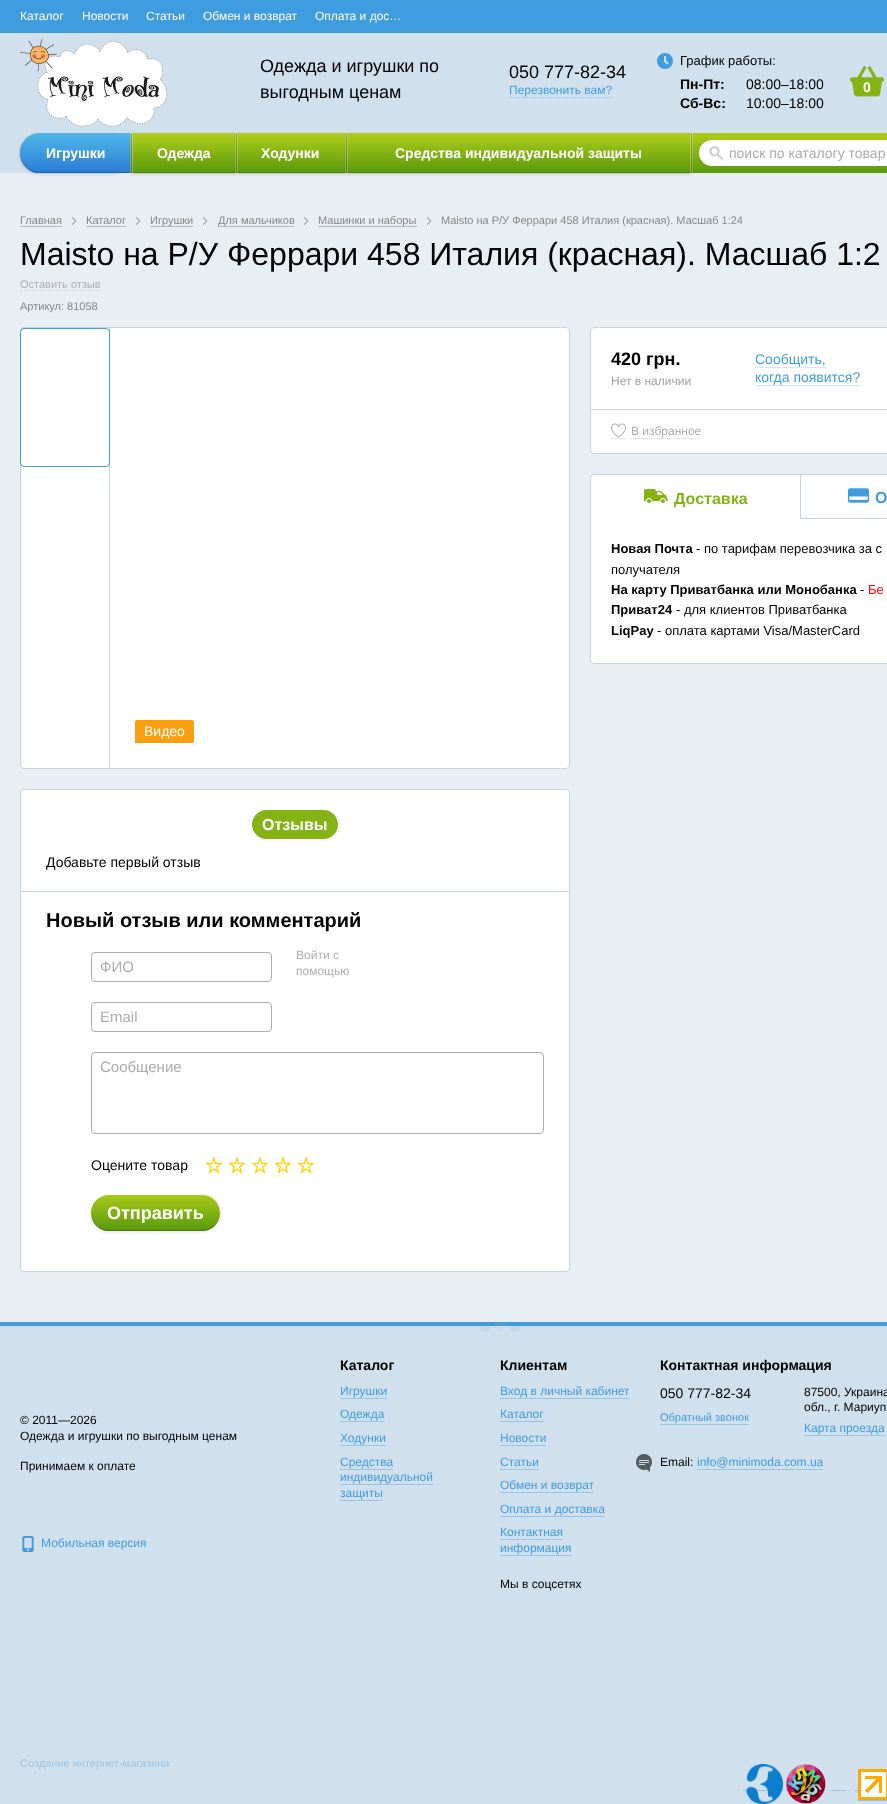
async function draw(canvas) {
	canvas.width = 887;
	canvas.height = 1804;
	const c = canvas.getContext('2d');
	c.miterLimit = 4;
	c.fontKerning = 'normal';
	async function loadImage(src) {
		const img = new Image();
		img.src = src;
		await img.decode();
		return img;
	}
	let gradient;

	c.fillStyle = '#e9eef2';
	c.fillRect(0, 0, 887, 1804);
	c.fillStyle = '#d1e0ed';
	c.fillRect(0, 33, 887, 140);
	c.fillStyle = '#3f9cdf';
	c.fillRect(0, 0, 887, 33);
	c.font = '12px Liberation Sans';
	c.fillStyle = '#fff';
	for (const [text, x, y] of [
		['Каталог', 20, 20],
		['Новости', 82, 20],
		['Статьи', 146, 20],
		['Обмен и возврат', 203, 20],
		['Оплата и дос…', 315, 20],
	]) {
		c.fillText(text, x, y);
	}
	c.drawImage(await loadImage('img1.png'), 20, 39, 147, 88);
	c.font = '18px Liberation Sans';
	c.fillStyle = '#000';
	for (const [text, x, y] of [
		['Одежда и игрушки по', 260, 72],
		['выгодным ценам', 260, 98],
		['050 777-82-34', 509, 78],
	]) {
		c.fillText(text, x, y);
	}
	c.font = '12px Liberation Sans';
	c.fillStyle = '#3f9cdf';
	c.fillText('Перезвонить вам?', 509, 94);
	c.beginPath();
	c.moveTo(509, 97.5);
	c.lineTo(612, 97.5);
	c.strokeStyle = '#88bee6';
	c.setLineDash([1, 1]);
	c.stroke();
	c.drawImage(await loadImage('img2.png'), 657, 53, 16, 16);
	c.font = '13px Liberation Sans';
	c.fillStyle = '#000';
	c.fillText('График работы:', 680, 65);
	c.font = 'bold 14px Liberation Sans';
	c.fillText('Пн-Пт:', 680, 89);
	c.font = '14px Liberation Sans';
	c.fillText('08:00–18:00', 746, 89);
	c.font = 'bold 14px Liberation Sans';
	c.fillText('Сб-Вс:', 680, 108);
	c.font = '14px Liberation Sans';
	c.fillText('10:00–18:00', 746, 108);
	c.drawImage(await loadImage('img3.png'), 850, 66, 34, 31);
	c.font = 'bold 14px Liberation Sans';
	c.fillStyle = '#fff';
	c.fillText('0', 863, 92);
	gradient = c.createLinearGradient(500, 133, 500, 173);
	gradient.addColorStop(0, '#afce1a');
	gradient.addColorStop(1, '#59990c');
	c.fillStyle = gradient;
	c.beginPath();
	c.roundRect(20, 133, 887, 40, 20);
	c.fill();
	c.fillStyle = '#00000033';
	c.filter = 'blur(1.5px)';
	c.beginPath();
	c.roundRect(20, 134, 111, 40, 20);
	c.fill();
	c.filter = 'none';
	gradient = c.createLinearGradient(76, 133, 76, 173);
	gradient.addColorStop(0, '#50b7e8');
	gradient.addColorStop(1, '#2b7cd5');
	c.fillStyle = gradient;
	c.beginPath();
	c.roundRect(20, 133, 111, 40, [20, 0, 0, 20]);
	c.fill();
	c.fillStyle = '#0354ad99';
	c.beginPath();
	c.moveTo(20, 152);
	c.bezierCurveTo(20, 162, 27, 171, 36, 173);
	c.lineTo(131, 173);
	c.lineTo(131, 172);
	c.lineTo(40, 172);
	c.bezierCurveTo(29, 172, 20, 163, 20, 152);
	c.closePath();
	c.fill();
	c.fillStyle = '#fff';
	c.fillText('Игрушки', 46, 158);
	c.save();
	c.beginPath();
	c.moveTo(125, 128);
	c.lineTo(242, 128);
	c.lineTo(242, 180);
	c.lineTo(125, 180);
	c.closePath();
	c.moveTo(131, 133);
	c.lineTo(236, 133);
	c.lineTo(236, 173);
	c.lineTo(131, 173);
	c.closePath();
	c.clip('evenodd');
	c.fillStyle = '#00000033';
	c.filter = 'blur(1.5px)';
	c.beginPath();
	c.rect(131, 134, 105, 40);
	c.fill();
	c.filter = 'none';
	c.restore();
	c.fillStyle = '#418105';
	c.fillRect(131, 172, 105, 1);
	c.strokeStyle = '#ffffff4d';
	c.setLineDash([]);
	c.strokeRect(130.5, 132.5, 2, 41);
	gradient = c.createLinearGradient(132, 133, 132, 173);
	gradient.addColorStop(0, '#93ad2a');
	gradient.addColorStop(1, '#577100');
	c.fillStyle = gradient;
	c.fillRect(131, 133, 1, 40);
	c.fillStyle = '#fff';
	c.fillText('Одежда', 157, 158);
	c.save();
	c.beginPath();
	c.moveTo(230, 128);
	c.lineTo(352, 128);
	c.lineTo(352, 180);
	c.lineTo(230, 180);
	c.closePath();
	c.moveTo(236, 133);
	c.lineTo(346, 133);
	c.lineTo(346, 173);
	c.lineTo(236, 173);
	c.closePath();
	c.clip('evenodd');
	c.fillStyle = '#00000033';
	c.filter = 'blur(1.5px)';
	c.beginPath();
	c.rect(236, 134, 110, 40);
	c.fill();
	c.filter = 'none';
	c.restore();
	c.fillStyle = '#31710099';
	c.fillRect(236, 172, 110, 1);
	c.strokeRect(235.5, 132.5, 2, 41);
	gradient = c.createLinearGradient(237, 133, 237, 173);
	gradient.addColorStop(0, '#93ad2a');
	gradient.addColorStop(1, '#577100');
	c.fillStyle = gradient;
	c.fillRect(236, 133, 1, 40);
	c.fillStyle = '#fff';
	c.fillText('Ходунки', 261, 158);
	c.save();
	c.beginPath();
	c.moveTo(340, 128);
	c.lineTo(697, 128);
	c.lineTo(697, 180);
	c.lineTo(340, 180);
	c.closePath();
	c.moveTo(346, 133);
	c.lineTo(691, 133);
	c.lineTo(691, 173);
	c.lineTo(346, 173);
	c.closePath();
	c.clip('evenodd');
	c.fillStyle = '#00000033';
	c.filter = 'blur(1.5px)';
	c.beginPath();
	c.rect(346, 134, 345, 40);
	c.fill();
	c.filter = 'none';
	c.restore();
	c.fillStyle = '#31710099';
	c.fillRect(346, 172, 345, 1);
	c.strokeRect(345.5, 132.5, 2, 41);
	gradient = c.createLinearGradient(347, 133, 347, 173);
	gradient.addColorStop(0, '#93ad2a');
	gradient.addColorStop(1, '#577100');
	c.fillStyle = gradient;
	c.fillRect(346, 133, 1, 40);
	c.fillStyle = '#fff';
	c.fillText('Средства индивидуальной защиты', 395, 158);
	c.strokeRect(690.5, 132.5, 2, 41);
	gradient = c.createLinearGradient(692, 133, 692, 173);
	gradient.addColorStop(0, '#93ad2a');
	gradient.addColorStop(1, '#577100');
	c.fillStyle = gradient;
	c.fillRect(691, 133, 1, 40);
	c.fillStyle = '#fff';
	c.beginPath();
	c.roundRect(699, 140, 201, 26, 13);
	c.fill();
	c.drawImage(await loadImage('img4.png'), 709, 146, 14, 14);
	c.font = '14px Liberation Sans';
	c.fillStyle = '#acacac';
	c.fillText('поиск по каталогу товар', 729, 158);
	c.font = '11px Liberation Sans';
	c.fillStyle = '#868686';
	c.fillText('Главная', 20, 224);
	c.fillStyle = '#b8babc';
	c.fillRect(20, 226, 42, 1);
	c.drawImage(await loadImage('img5.png'), 71, 217, 6, 8);
	c.fillStyle = '#868686';
	c.fillText('Каталог', 86, 224);
	c.fillStyle = '#b8babc';
	c.fillRect(86, 226, 40, 1);
	c.drawImage(await loadImage('img5.png'), 135, 217, 6, 8);
	c.fillRect(150, 226, 43, 1);
	c.fillStyle = '#868686';
	c.fillText('Игрушки', 150, 224);
	c.drawImage(await loadImage('img5.png'), 202, 217, 6, 8);
	c.fillStyle = '#b8babc';
	c.fillRect(218, 226, 76, 1);
	c.fillStyle = '#868686';
	c.fillText('Для мальчиков', 218, 224);
	c.drawImage(await loadImage('img5.png'), 303, 217, 6, 8);
	c.fillStyle = '#b8babc';
	c.fillRect(318, 226, 99, 1);
	c.fillStyle = '#868686';
	c.fillText('Машинки и наборы', 318, 224);
	c.drawImage(await loadImage('img5.png'), 426, 217, 6, 8);
	c.fillText('Maisto на Р/У Феррари 458 Италия (красная). Масшаб 1:24', 441, 224);
	c.font = '32px Liberation Sans';
	c.fillStyle = '#000';
	c.fillText('Maisto на Р/У Феррари 458 Италия (красная). Масшаб 1:2', 20, 265);
	c.font = '11px Liberation Sans';
	c.fillStyle = '#acacac';
	c.fillText('Оставить отзыв', 20, 288);
	c.beginPath();
	c.moveTo(20, 290.5);
	c.lineTo(101, 290.5);
	c.strokeStyle = '#cbcdcf';
	c.setLineDash([1, 1]);
	c.stroke();
	c.fillStyle = '#868686';
	c.fillText('Артикул: 81058', 20, 310);
	c.fillStyle = '#fff';
	c.beginPath();
	c.roundRect(590.5, 327.5, 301, 126, 3.5);
	c.fill();
	c.strokeStyle = '#c7d4df';
	c.setLineDash([]);
	c.stroke();
	c.fillStyle = '#c7d4df';
	c.fillRect(591, 409, 296, 1);
	c.font = 'bold 18px Liberation Sans';
	c.fillStyle = '#000';
	c.fillText('420 грн.', 611, 365);
	c.font = '12px Liberation Sans';
	c.fillStyle = '#a2a2a2';
	c.fillText('Нет в наличии', 611, 385);
	c.font = '14px Liberation Sans';
	c.fillStyle = '#3f9cdf';
	c.fillText('Сообщить,', 755, 364);
	c.fillStyle = '#cfe6f7';
	c.fillRect(755, 367, 71, 1);
	c.fillStyle = '#3f9cdf';
	c.fillText('когда появится?', 755, 382);
	c.fillStyle = '#cfe6f7';
	c.fillRect(755, 385, 105, 1);
	c.beginPath();
	c.moveTo(611, 438.5);
	c.lineTo(626, 438.5);
	c.strokeStyle = '#d6d6d6';
	c.setLineDash([1, 1]);
	c.stroke();
	c.beginPath();
	c.moveTo(631, 438.5);
	c.lineTo(701, 438.5);
	c.stroke();
	c.drawImage(await loadImage('img6.png'), 611, 423, 15, 15);
	c.font = '12px Liberation Sans';
	c.fillStyle = '#acacac';
	c.fillText('В избранное', 631, 435);
	c.fillStyle = '#fff';
	c.beginPath();
	c.roundRect(590.5, 474.5, 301, 189, 3.5);
	c.fill();
	c.strokeStyle = '#c7d4df';
	c.setLineDash([]);
	c.stroke();
	c.drawImage(await loadImage('img7.png'), 644, 489, 24, 14);
	c.font = 'bold 16px Liberation Sans';
	c.fillStyle = '#84b313';
	c.fillText('Доставка', 674, 504);
	c.fillStyle = '#c7d4df';
	c.fillRect(800, 518, 87, 1);
	c.fillRect(800, 475, 1, 44);
	c.drawImage(await loadImage('img8.png'), 848, 488, 21, 15);
	c.fillStyle = '#3f9cdf';
	c.fillText('О', 875, 503);
	c.font = 'bold 13px Liberation Sans';
	c.fillStyle = '#000';
	c.fillText('Новая Почта', 611, 553);
	c.font = '13px Liberation Sans';
	c.fillText('- по тарифам перевозчика за с', 696, 553);
	c.fillText('получателя', 611, 574);
	c.font = 'bold 13px Liberation Sans';
	c.fillText('На карту Приватбанка или Монобанка', 611, 594);
	c.font = '13px Liberation Sans';
	c.fillText('-', 860, 594);
	c.fillStyle = '#f00';
	c.fillText('Бе', 868, 594);
	c.font = 'bold 13px Liberation Sans';
	c.fillStyle = '#000';
	c.fillText('Приват24', 611, 614);
	c.font = '13px Liberation Sans';
	c.fillText('- для клиентов Приватбанка', 676, 614);
	c.font = 'bold 13px Liberation Sans';
	c.fillText('LiqPay', 611, 635);
	c.font = '13px Liberation Sans';
	c.fillText('- оплата картами Visa/MasterCard', 657, 635);
	c.fillStyle = '#fff';
	c.beginPath();
	c.roundRect(20.5, 327.5, 549, 441, 3.5);
	c.fill();
	c.stroke();
	c.fillStyle = '#c7d4df';
	c.fillRect(109, 328, 1, 440);
	c.beginPath();
	c.roundRect(20.5, 328.5, 89, 138, 3.5);
	c.strokeStyle = '#3f9cdf';
	c.stroke();
	c.fillStyle = '#fa9f0f';
	c.beginPath();
	c.roundRect(135, 720, 59, 23, [2, 2, 2, 0]);
	c.fill();
	c.font = '14px Liberation Sans';
	c.fillStyle = '#fff';
	c.fillText('Видео', 144, 736);
	c.beginPath();
	c.roundRect(20.5, 789.5, 549, 482, 3.5);
	c.fill();
	c.strokeStyle = '#c7d4df';
	c.stroke();
	c.fillStyle = '#84b313';
	c.beginPath();
	c.roundRect(252, 810, 86, 29, 14.5);
	c.fill();
	c.font = 'bold 16px Liberation Sans';
	c.fillStyle = '#fff';
	c.fillText('Отзывы', 262, 830);
	c.font = '14px Liberation Sans';
	c.fillStyle = '#000';
	c.fillText('Добавьте первый отзыв', 46, 867);
	c.fillStyle = '#c7d4df';
	c.fillRect(21, 891, 548, 1);
	c.font = 'bold 20px Liberation Sans';
	c.fillStyle = '#000';
	c.fillText('Новый отзыв или комментарий', 46, 927);
	c.beginPath();
	c.roundRect(91.5, 952.5, 180, 29, 3.5);
	c.strokeStyle = '#acacac';
	c.stroke();
	c.font = '15px Liberation Sans';
	c.fillStyle = '#acacac';
	c.fillText('ФИО', 100, 972);
	c.beginPath();
	c.roundRect(91.5, 1002.5, 180, 29, 3.5);
	c.stroke();
	c.fillText('Email', 100, 1022);
	c.font = '12px Liberation Sans';
	c.fillText('Войти с', 296, 959);
	c.fillText('помощью', 296, 975);
	c.beginPath();
	c.roundRect(91.5, 1052.5, 452, 81, 3.5);
	c.stroke();
	c.font = '15px Liberation Sans';
	c.fillText('Сообщение', 100, 1072);
	c.font = '14px Liberation Sans';
	c.fillStyle = '#000';
	c.fillText('Оцените товар', 91, 1170);
	c.drawImage(await loadImage('img9.png'), 205, 1156, 18, 18);
	c.drawImage(await loadImage('img9.png'), 228, 1156, 18, 18);
	c.drawImage(await loadImage('img9.png'), 251, 1156, 18, 18);
	c.drawImage(await loadImage('img9.png'), 274, 1156, 18, 18);
	c.drawImage(await loadImage('img9.png'), 297, 1156, 18, 18);
	c.fillStyle = '#0000001a';
	c.filter = 'blur(2px)';
	c.beginPath();
	c.roundRect(91, 1196, 129, 36, 18);
	c.fill();
	c.filter = 'none';
	gradient = c.createLinearGradient(156, 1195, 156, 1231);
	gradient.addColorStop(0, '#a9ca19');
	gradient.addColorStop(1, '#59990c');
	c.fillStyle = gradient;
	c.beginPath();
	c.roundRect(91, 1195, 129, 36, 18);
	c.fill();
	c.fillStyle = '#34630099';
	c.beginPath();
	c.moveTo(91, 1213);
	c.bezierCurveTo(91, 1223, 99, 1231, 109, 1231);
	c.lineTo(202, 1231);
	c.bezierCurveTo(212, 1231, 220, 1223, 220, 1213);
	c.bezierCurveTo(220, 1222, 212, 1230, 202, 1230);
	c.lineTo(109, 1230);
	c.bezierCurveTo(99, 1230, 91, 1222, 91, 1213);
	c.closePath();
	c.fill();
	c.font = 'bold 18px Liberation Sans';
	c.fillStyle = '#fff';
	c.fillText('Отправить', 107, 1219);
	c.fillStyle = '#d1e0ed';
	c.fillRect(0, 1326, 887, 478);
	c.fillStyle = '#3f9cdf';
	c.fillRect(0, 1322, 887, 4);
	c.fillStyle = '#acacac1a';
	c.beginPath();
	c.arc(500, 1327, 5, 0, 2 * Math.PI);
	c.fill();
	c.fillStyle = '#3f9cdf1a';
	c.beginPath();
	c.arc(485, 1327, 5, 0, 2 * Math.PI);
	c.fill();
	c.beginPath();
	c.arc(515, 1327, 5, 0, 2 * Math.PI);
	c.fill();
	c.font = '12px Liberation Sans';
	c.fillStyle = '#000';
	for (const [text, x, y] of [
		['© 2011—2026', 20, 1424],
		['Одежда и игрушки по выгодным ценам', 20, 1440],
		['Принимаем к оплате', 20, 1470],
	]) {
		c.fillText(text, x, y);
	}
	c.drawImage(await loadImage('img10.png'), 22, 1536, 12, 16);
	c.fillStyle = '#3f9cdf';
	c.fillText('Мобильная версия', 41, 1547);
	c.font = 'bold 14px Liberation Sans';
	c.fillStyle = '#000';
	c.fillText('Каталог', 340, 1370);
	c.font = '12px Liberation Sans';
	c.fillStyle = '#3f9cdf';
	c.fillText('Игрушки', 340, 1395);
	c.fillStyle = '#97c5e7';
	c.fillRect(340, 1398, 47, 1);
	c.fillStyle = '#3f9cdf';
	c.fillText('Одежда', 340, 1418);
	c.fillStyle = '#97c5e7';
	c.fillRect(340, 1421, 44, 1);
	c.fillStyle = '#3f9cdf';
	c.fillText('Ходунки', 340, 1442);
	c.fillStyle = '#97c5e7';
	c.fillRect(340, 1445, 46, 1);
	c.fillStyle = '#3f9cdf';
	c.fillText('Средства', 340, 1466);
	c.fillStyle = '#97c5e7';
	c.fillRect(340, 1469, 53, 1);
	c.fillStyle = '#3f9cdf';
	c.fillText('индивидуальной', 340, 1481);
	c.fillStyle = '#97c5e7';
	c.fillRect(340, 1484, 93, 1);
	c.fillStyle = '#3f9cdf';
	c.fillText('защиты', 340, 1497);
	c.fillStyle = '#97c5e7';
	c.fillRect(340, 1500, 43, 1);
	c.font = 'bold 14px Liberation Sans';
	c.fillStyle = '#000';
	c.fillText('Клиентам', 500, 1370);
	c.font = '12px Liberation Sans';
	c.fillStyle = '#3f9cdf';
	c.fillText('Вход в личный кабинет', 500, 1395);
	c.fillStyle = '#97c5e7';
	c.fillRect(500, 1398, 130, 1);
	c.fillStyle = '#3f9cdf';
	c.fillText('Каталог', 500, 1418);
	c.fillStyle = '#97c5e7';
	c.fillRect(500, 1421, 44, 1);
	c.fillStyle = '#3f9cdf';
	c.fillText('Новости', 500, 1442);
	c.fillStyle = '#97c5e7';
	c.fillRect(500, 1445, 46, 1);
	c.fillStyle = '#3f9cdf';
	c.fillText('Статьи', 500, 1466);
	c.fillStyle = '#97c5e7';
	c.fillRect(500, 1469, 39, 1);
	c.fillStyle = '#3f9cdf';
	c.fillText('Обмен и возврат', 500, 1489);
	c.fillStyle = '#97c5e7';
	c.fillRect(500, 1492, 94, 1);
	c.fillStyle = '#3f9cdf';
	c.fillText('Оплата и доставка', 500, 1513);
	c.fillStyle = '#97c5e7';
	c.fillRect(500, 1516, 105, 1);
	c.fillStyle = '#3f9cdf';
	c.fillText('Контактная', 500, 1536);
	c.fillStyle = '#97c5e7';
	c.fillRect(500, 1539, 63, 1);
	c.fillStyle = '#3f9cdf';
	c.fillText('информация', 500, 1552);
	c.fillStyle = '#97c5e7';
	c.fillRect(500, 1555, 72, 1);
	c.fillStyle = '#000';
	c.fillText('Мы в соцсетях', 500, 1588);
	c.font = 'bold 14px Liberation Sans';
	c.fillText('Контактная информация', 660, 1370);
	c.font = '14px Liberation Sans';
	c.fillText('050 777-82-34', 660, 1398);
	c.fillStyle = '#97c5e7';
	c.fillRect(660, 1424, 89, 1);
	c.font = '11px Liberation Sans';
	c.fillStyle = '#3f9cdf';
	c.fillText('Обратный звонок', 660, 1421);
	c.font = '12px Liberation Sans';
	c.fillStyle = '#000';
	c.fillText('87500, Украина', 804, 1396);
	c.fillText('обл., г. Мариуп', 804, 1411);
	c.fillStyle = '#3f9cdf';
	c.fillText('Карта проезда', 804, 1432);
	c.fillStyle = '#97c5e7';
	c.fillRect(804, 1435, 81, 1);
	c.drawImage(await loadImage('img11.png'), 636, 1454, 16, 18);
	c.fillStyle = '#000';
	c.fillText('Email:', 660, 1466);
	c.fillStyle = '#3f9cdf';
	c.fillText('info@minimoda.com.ua', 697, 1466);
	c.fillStyle = '#97c5e7';
	c.fillRect(697, 1469, 126, 1);
	c.font = '11px Liberation Sans';
	c.fillText('Создание интернет-магазина', 20, 1767);
	c.fillRect(743, 1790, 40, 1);
	c.drawImage(await loadImage('img12.png'), 746, 1764, 37, 40);
	c.fillRect(786, 1790, 40, 1);
	c.drawImage(await loadImage('img13.png'), 786, 1764, 40, 40);
	c.fillRect(853, 1785, 1, 1);
	c.drawImage(await loadImage('img14.png'), 858, 1769, 29, 31);
	for (const [x, y, w, h, color] of [
		[830, 1790, 16, 1, '#97c5e7'],
		[849, 1790, 1, 1, '#97c5e7'],
		[854, 1790, 4, 1, '#97c5e7'],
		[858, 1800, 29, 1, '#97c5e7'],
	]) {
		c.fillStyle = color;
		c.fillRect(x, y, w, h);
	}
}

draw(document.querySelector('canvas'));
